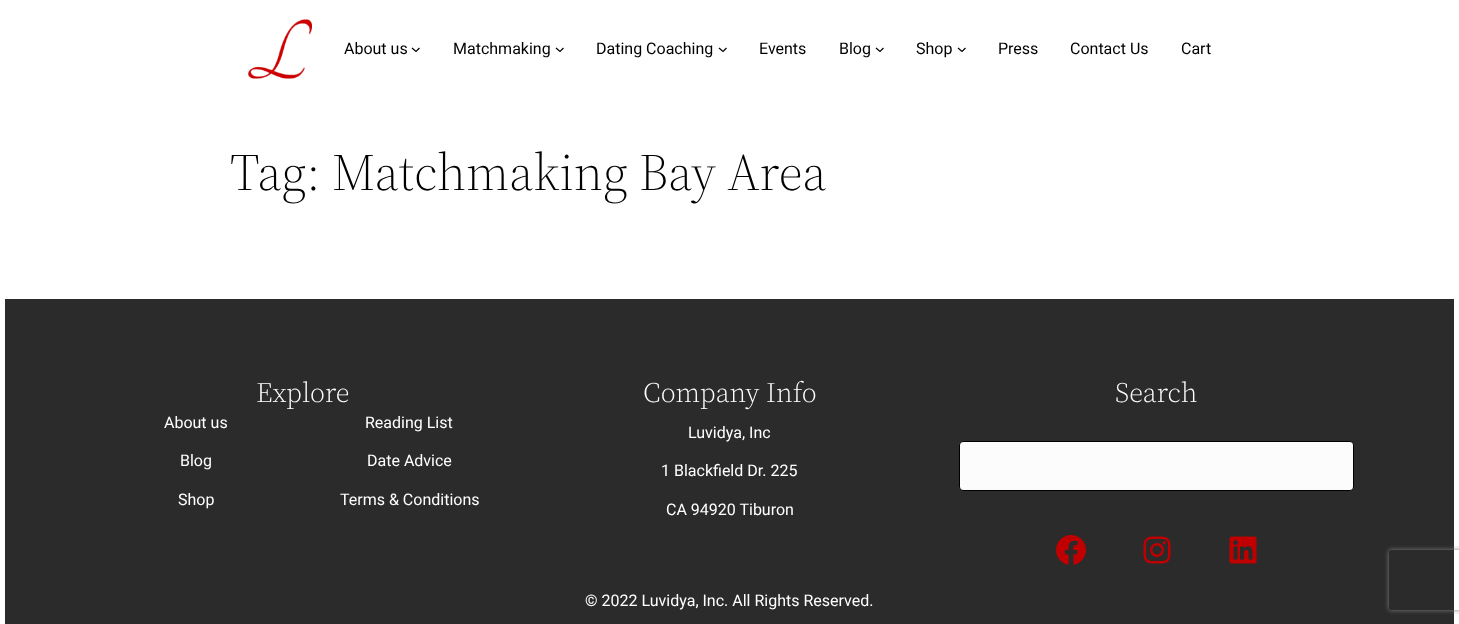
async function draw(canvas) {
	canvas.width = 1459;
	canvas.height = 624;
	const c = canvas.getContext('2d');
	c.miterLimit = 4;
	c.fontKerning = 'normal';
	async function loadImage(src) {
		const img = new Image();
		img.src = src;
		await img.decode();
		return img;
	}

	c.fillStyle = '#fff';
	c.fillRect(0, 0, 1459, 624);
	c.drawImage(await loadImage('img1.png'), 248, 19, 64, 60);
	c.font = '16px Roboto';
	c.fillStyle = '#000';
	c.fillText('About us', 344, 54);
	c.beginPath();
	c.moveTo(412, 48);
	c.lineTo(416, 51.5);
	c.lineTo(419.5, 48);
	c.strokeStyle = '#000';
	c.lineWidth = 1.2;
	c.stroke();
	c.fillText('Matchmaking', 453, 54);
	c.beginPath();
	c.moveTo(556, 48);
	c.lineTo(560, 51.5);
	c.lineTo(563.5, 48);
	c.stroke();
	c.fillText('Dating Coaching', 596, 54);
	c.beginPath();
	c.moveTo(719, 48);
	c.lineTo(723, 51.5);
	c.lineTo(726.5, 48);
	c.stroke();
	c.fillText('Events', 759, 54);
	c.fillText('Blog', 839, 54);
	c.beginPath();
	c.moveTo(876, 48);
	c.lineTo(880, 51.5);
	c.lineTo(883.5, 48);
	c.stroke();
	c.fillText('Shop', 916, 54);
	c.beginPath();
	c.moveTo(958, 48);
	c.lineTo(962, 51.5);
	c.lineTo(965.5, 48);
	c.stroke();
	for (const [text, x, y] of [
		['Press', 998, 54],
		['Contact Us', 1070, 54],
		['Cart', 1181, 54],
	]) {
		c.fillText(text, x, y);
	}
	c.font = '300 52px "Source Serif 4"';
	c.fillText('Tag: Matchmaking Bay Area', 230, 190);
	c.fillStyle = '#2b2b2b';
	c.fillRect(5, 299, 1449, 325);
	c.font = '300 28px "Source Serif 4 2"';
	c.fillStyle = '#fff';
	c.fillText('Explore', 256, 402);
	c.font = '16px Roboto';
	for (const [text, x, y] of [
		['About us', 164, 428],
		['Blog', 180, 466],
		['Shop', 178, 505],
		['Reading List', 365, 428],
		['Date Advice', 367, 466],
		['Terms & Conditions', 340, 505],
	]) {
		c.fillText(text, x, y);
	}
	c.font = '300 28px "Source Serif 4 2"';
	c.fillText('Company Info', 643, 402);
	c.font = '16px Roboto';
	for (const [text, x, y] of [
		['Luvidya, Inc', 688, 438],
		['1 Blackfield Dr. 225', 661, 476],
		['CA 94920 Tiburon', 666, 515],
	]) {
		c.fillText(text, x, y);
	}
	c.font = '300 28px "Source Serif 4 2"';
	c.fillText('Search', 1115, 402);
	c.fillStyle = '#fcfcfc';
	c.beginPath();
	c.roundRect(959.5, 441.5, 394, 49, 3.5);
	c.fill();
	c.lineWidth = 1;
	c.stroke();
	c.drawImage(await loadImage('img2.png'), 1056, 535, 30, 30);
	c.drawImage(await loadImage('img3.png'), 1143, 536, 28, 28);
	c.drawImage(await loadImage('img4.png'), 1229, 536, 28, 28);
	c.font = '16px Roboto';
	c.fillStyle = '#fff';
	c.fillText('© 2022 Luvidya, Inc. All Rights Reserved.', 585, 606);
	c.save();
	c.beginPath();
	c.moveTo(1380, 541);
	c.lineTo(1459, 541);
	c.lineTo(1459, 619);
	c.lineTo(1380, 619);
	c.closePath();
	c.moveTo(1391, 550);
	c.lineTo(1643, 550);
	c.bezierCurveTo(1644, 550, 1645, 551, 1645, 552);
	c.lineTo(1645, 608);
	c.bezierCurveTo(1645, 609, 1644, 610, 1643, 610);
	c.lineTo(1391, 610);
	c.bezierCurveTo(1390, 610, 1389, 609, 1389, 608);
	c.lineTo(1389, 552);
	c.bezierCurveTo(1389, 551, 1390, 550, 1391, 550);
	c.closePath();
	c.clip('evenodd');
	c.fillStyle = '#808080';
	c.filter = 'blur(2.5px)';
	c.beginPath();
	c.roundRect(1389, 550, 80, 60, 2);
	c.fill();
	c.filter = 'none';
	c.restore();
}

draw(document.querySelector('canvas'));
